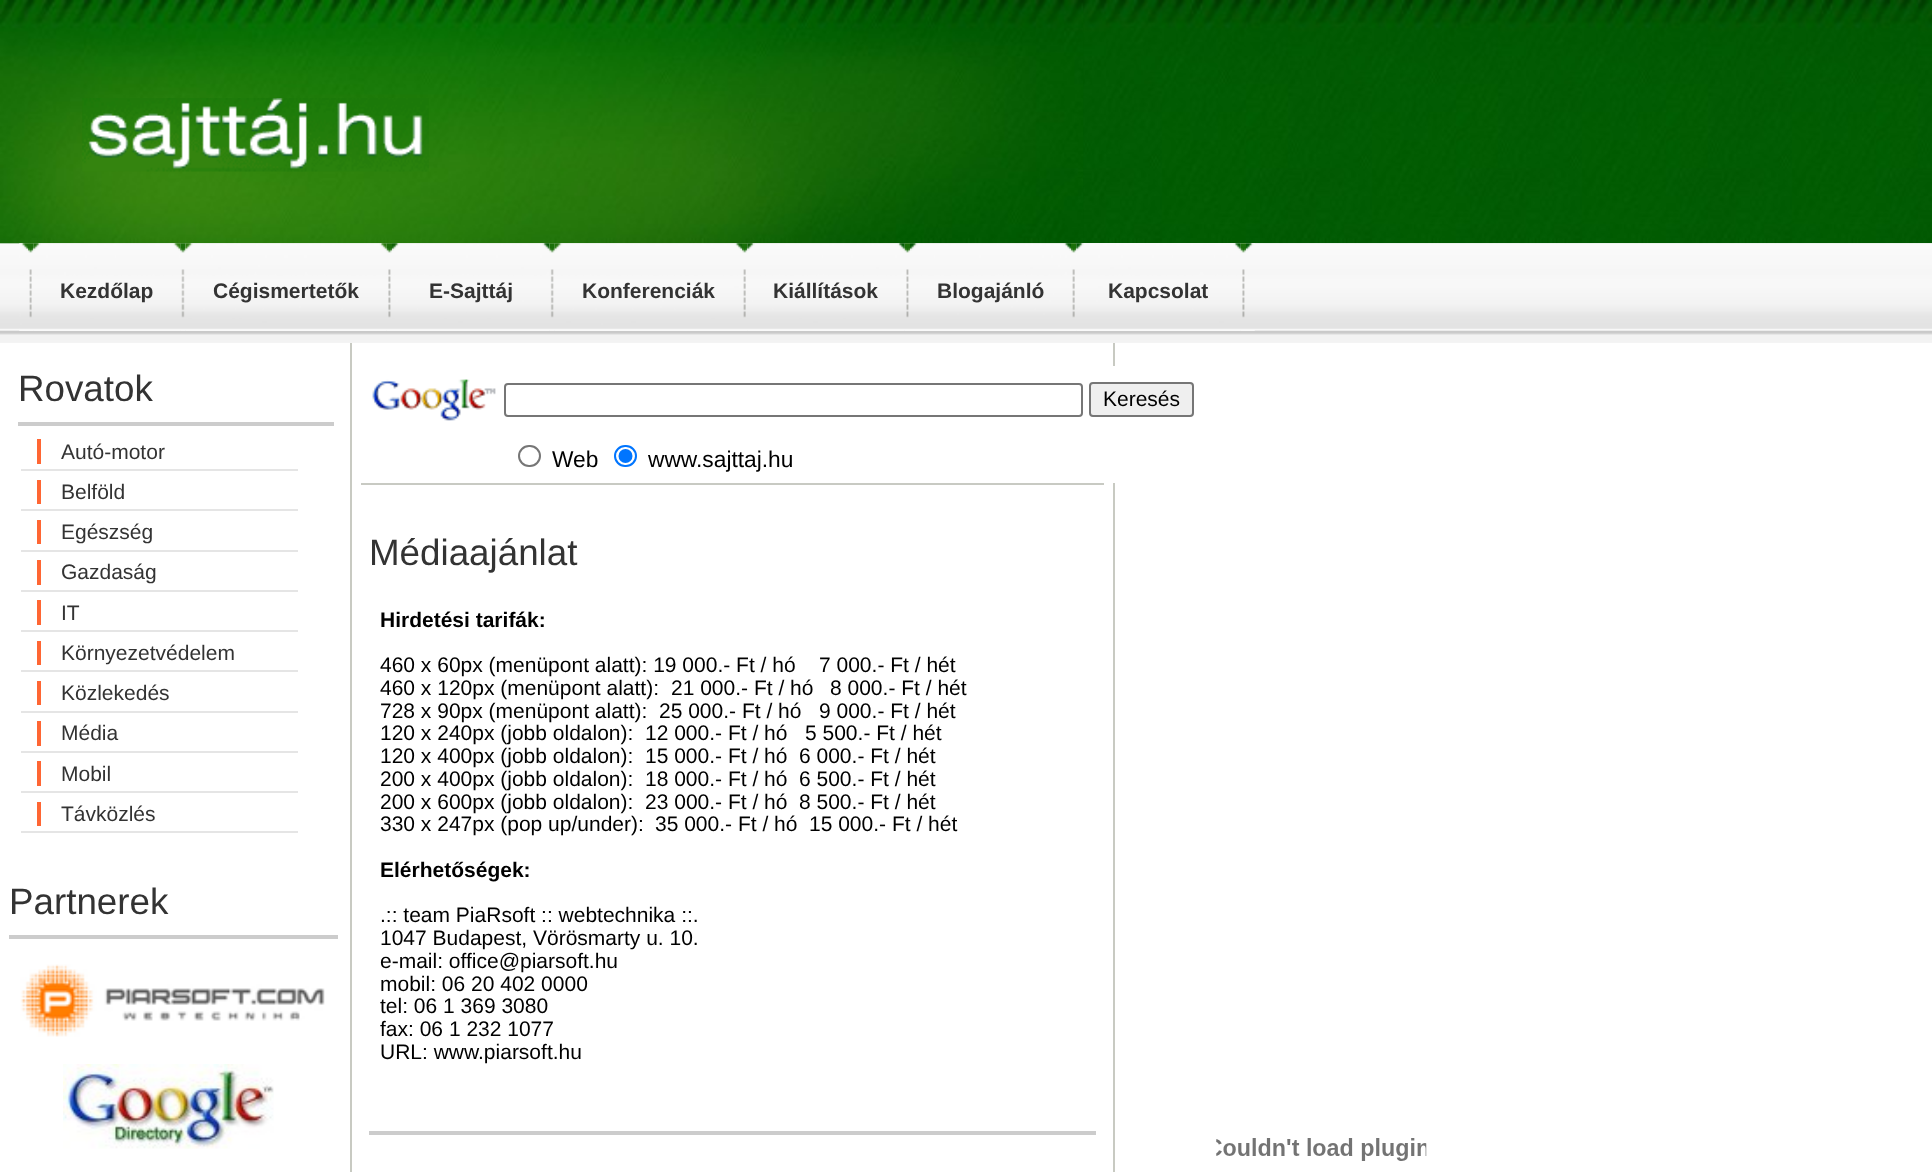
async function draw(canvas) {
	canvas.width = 1932;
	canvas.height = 1172;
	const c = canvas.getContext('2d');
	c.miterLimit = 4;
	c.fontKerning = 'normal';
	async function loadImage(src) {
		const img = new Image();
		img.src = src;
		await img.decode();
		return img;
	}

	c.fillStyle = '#fff';
	c.fillRect(0, 0, 1932, 1172);
	c.drawImage(await loadImage('img1.png'), 0, 0, 1932, 244);
	c.drawImage(await loadImage('img2.png'), 0, 243, 1932, 100);
	c.drawImage(await loadImage('img3.png'), 0, 0, 1084, 244);
	c.drawImage(await loadImage('img4.png'), 82, 98, 347, 74);
	c.drawImage(await loadImage('img5.png'), 19, 243, 9, 88);
	c.drawImage(await loadImage('img6.png'), 28, 243, 6, 88);
	c.drawImage(await loadImage('img7.png'), 33, 243, 148, 88);
	c.font = 'bold 21px Liberation Sans';
	c.fillStyle = '#333';
	c.fillText('Kezdőlap', 60, 298);
	c.drawImage(await loadImage('img8.png'), 180, 243, 6, 88);
	c.drawImage(await loadImage('img9.png'), 185, 243, 202, 88);
	c.fillText('Cégismertetők', 213, 298);
	c.drawImage(await loadImage('img10.png'), 386, 243, 6, 88);
	c.drawImage(await loadImage('img11.png'), 392, 243, 158, 88);
	c.fillText('E-Sajttáj', 429, 298);
	c.drawImage(await loadImage('img12.png'), 549, 243, 6, 88);
	c.drawImage(await loadImage('img13.png'), 554, 243, 188, 88);
	c.fillText('Konferenciák', 582, 298);
	c.drawImage(await loadImage('img14.png'), 742, 243, 6, 88);
	c.drawImage(await loadImage('img15.png'), 747, 243, 158, 88);
	c.fillText('Kiállítások', 773, 298);
	c.drawImage(await loadImage('img16.png'), 904, 243, 6, 88);
	c.drawImage(await loadImage('img17.png'), 910, 243, 161, 88);
	c.fillText('Blogajánló', 937, 298);
	c.drawImage(await loadImage('img18.png'), 1071, 243, 6, 88);
	c.drawImage(await loadImage('img19.png'), 1076, 243, 165, 88);
	c.fillText('Kapcsolat', 1108, 298);
	c.drawImage(await loadImage('img20.png'), 1240, 243, 6, 88);
	c.drawImage(await loadImage('img21.png'), 1246, 243, 9, 88);
	c.fillStyle = '#ccc';
	c.fillRect(18, 422, 316, 4);
	c.font = '36.75px Liberation Sans';
	c.fillStyle = '#333';
	c.fillText('Rovatok', 18, 401);
	c.fillStyle = '#e5e5e5';
	c.fillRect(21, 469, 277, 2);
	c.font = '21px Liberation Sans';
	c.fillStyle = '#333';
	c.fillText('Autó-motor', 61, 459);
	c.fillStyle = '#f63';
	c.fillRect(37, 439, 4, 25);
	c.fillStyle = '#e5e5e5';
	c.fillRect(21, 509, 277, 2);
	c.fillStyle = '#333';
	c.fillText('Belföld', 61, 499);
	c.fillStyle = '#f63';
	c.fillRect(37, 480, 4, 24);
	c.fillStyle = '#e5e5e5';
	c.fillRect(21, 550, 277, 2);
	c.fillStyle = '#333';
	c.fillText('Egészség', 61, 539);
	c.fillStyle = '#f63';
	c.fillRect(37, 520, 4, 24);
	c.fillStyle = '#e5e5e5';
	c.fillRect(21, 590, 277, 2);
	c.fillStyle = '#333';
	c.fillText('Gazdaság', 61, 579);
	c.fillStyle = '#f63';
	c.fillRect(37, 560, 4, 25);
	c.fillStyle = '#e5e5e5';
	c.fillRect(21, 630, 277, 2);
	c.fillStyle = '#333';
	c.fillText('IT', 61, 620);
	c.fillStyle = '#f63';
	c.fillRect(37, 600, 4, 25);
	c.fillStyle = '#e5e5e5';
	c.fillRect(21, 670, 277, 2);
	c.fillStyle = '#333';
	c.fillText('Környezetvédelem', 61, 660);
	c.fillStyle = '#f63';
	c.fillRect(37, 641, 4, 24);
	c.fillStyle = '#e5e5e5';
	c.fillRect(21, 711, 277, 2);
	c.fillStyle = '#333';
	c.fillText('Közlekedés', 61, 700);
	c.fillStyle = '#f63';
	c.fillRect(37, 681, 4, 24);
	c.fillStyle = '#e5e5e5';
	c.fillRect(21, 751, 277, 2);
	c.fillStyle = '#333';
	c.fillText('Média', 61, 740);
	c.fillStyle = '#f63';
	c.fillRect(37, 721, 4, 25);
	c.fillStyle = '#e5e5e5';
	c.fillRect(21, 791, 277, 2);
	c.fillStyle = '#333';
	c.fillText('Mobil', 61, 781);
	c.fillStyle = '#f63';
	c.fillRect(37, 761, 4, 25);
	c.fillStyle = '#e5e5e5';
	c.fillRect(21, 831, 277, 2);
	c.fillStyle = '#333';
	c.fillText('Távközlés', 61, 821);
	c.fillStyle = '#f63';
	c.fillRect(37, 802, 4, 24);
	c.fillStyle = '#ccc';
	c.fillRect(9, 935, 329, 4);
	c.font = '36.75px Liberation Sans';
	c.fillStyle = '#333';
	c.fillText('Partnerek', 9, 914);
	c.drawImage(await loadImage('img22.png'), 20, 964, 305, 73);
	c.drawImage(await loadImage('img23.png'), 63, 1064, 211, 85);
	for (const [x, y, w, h, color] of [
		[1113, 343, 2, 829, '#c8cac2'],
		[350, 343, 2, 829, '#c8cac2'],
		[361, 483, 743, 2, '#c8cac3'],
		[1113, 366, 2, 117, '#fff'],
	]) {
		c.fillStyle = color;
		c.fillRect(x, y, w, h);
	}
	c.drawImage(await loadImage('img24.png'), 372, 379, 124, 42);
	c.beginPath();
	c.roundRect(505, 384, 577, 32, 3);
	c.strokeStyle = '#767676';
	c.lineWidth = 2;
	c.stroke();
	c.fillStyle = '#efefef';
	c.beginPath();
	c.roundRect(1090, 383, 103, 33, 3);
	c.fill();
	c.stroke();
	c.font = '21px Liberation Sans';
	c.fillStyle = '#000';
	c.fillText('Keresés', 1103, 406);
	c.beginPath();
	c.roundRect(519, 446, 21, 20, 10);
	c.stroke();
	c.font = '22.75px Liberation Sans';
	c.fillText('Web', 552, 467);
	c.beginPath();
	c.roundRect(615, 446, 21, 20, 10);
	c.strokeStyle = '#0075ff';
	c.stroke();
	c.fillStyle = '#0075ff';
	c.beginPath();
	c.arc(625.5, 456, 7, 0, 2 * Math.PI);
	c.fill();
	c.fillStyle = '#000';
	c.fillText('www.sajttaj.hu', 648, 467);
	c.font = '36.75px Liberation Sans';
	c.fillStyle = '#333';
	c.fillText('Médiaajánlat', 369, 565);
	c.font = 'bold 21px Liberation Sans';
	c.fillStyle = '#000';
	c.fillText('Hirdetési tarifák:', 380, 627);
	c.font = '21px Liberation Sans';
	for (const [text, x, y] of [
		['460 x 60px (menüpont alatt): 19 000.- Ft / hó', 380, 672],
		['7 000.- Ft / hét', 819, 672],
		['460 x 120px (menüpont alatt):', 380, 695],
		['21 000.- Ft / hó', 671, 695],
		['8 000.- Ft / hét', 830, 695],
		['728 x 90px (menüpont alatt):', 380, 718],
		['25 000.- Ft / hó', 659, 718],
		['9 000.- Ft / hét', 819, 718],
		['120 x 240px (jobb oldalon):', 380, 740],
		['12 000.- Ft / hó', 645, 740],
		['5 500.- Ft / hét', 805, 740],
		['120 x 400px (jobb oldalon):', 380, 763],
		['15 000.- Ft / hó', 645, 763],
		['6 000.- Ft / hét', 799, 763],
		['200 x 400px (jobb oldalon):', 380, 786],
		['18 000.- Ft / hó', 645, 786],
		['6 500.- Ft / hét', 799, 786],
		['200 x 600px (jobb oldalon):  23 000.- Ft / hó', 380, 809],
		['8 500.- Ft / hét', 799, 809],
		['330 x 247px (pop up/under):', 380, 831],
		['35 000.- Ft / hó', 655, 831],
		['15 000.- Ft / hét', 809, 831],
	]) {
		c.fillText(text, x, y);
	}
	c.font = 'bold 21px Liberation Sans';
	c.fillText('Elérhetőségek:', 380, 877);
	c.font = '21px Liberation Sans';
	for (const [text, x, y] of [
		['.:: team PiaRsoft :: webtechnika ::.', 380, 922],
		['1047 Budapest, Vörösmarty u. 10.', 380, 945],
		['e-mail: office@piarsoft.hu', 380, 968],
		['mobil: 06 20 402 0000', 380, 991],
		['tel: 06 1 369 3080', 380, 1013],
		['fax: 06 1 232 1077', 380, 1036],
		['URL: www.piarsoft.hu', 380, 1059],
	]) {
		c.fillText(text, x, y);
	}
	c.fillStyle = '#ccc';
	c.fillRect(369, 1131, 727, 4);
	c.drawImage(await loadImage('img25.png'), 1216, 1138, 211, 23);
}

draw(document.querySelector('canvas'));
